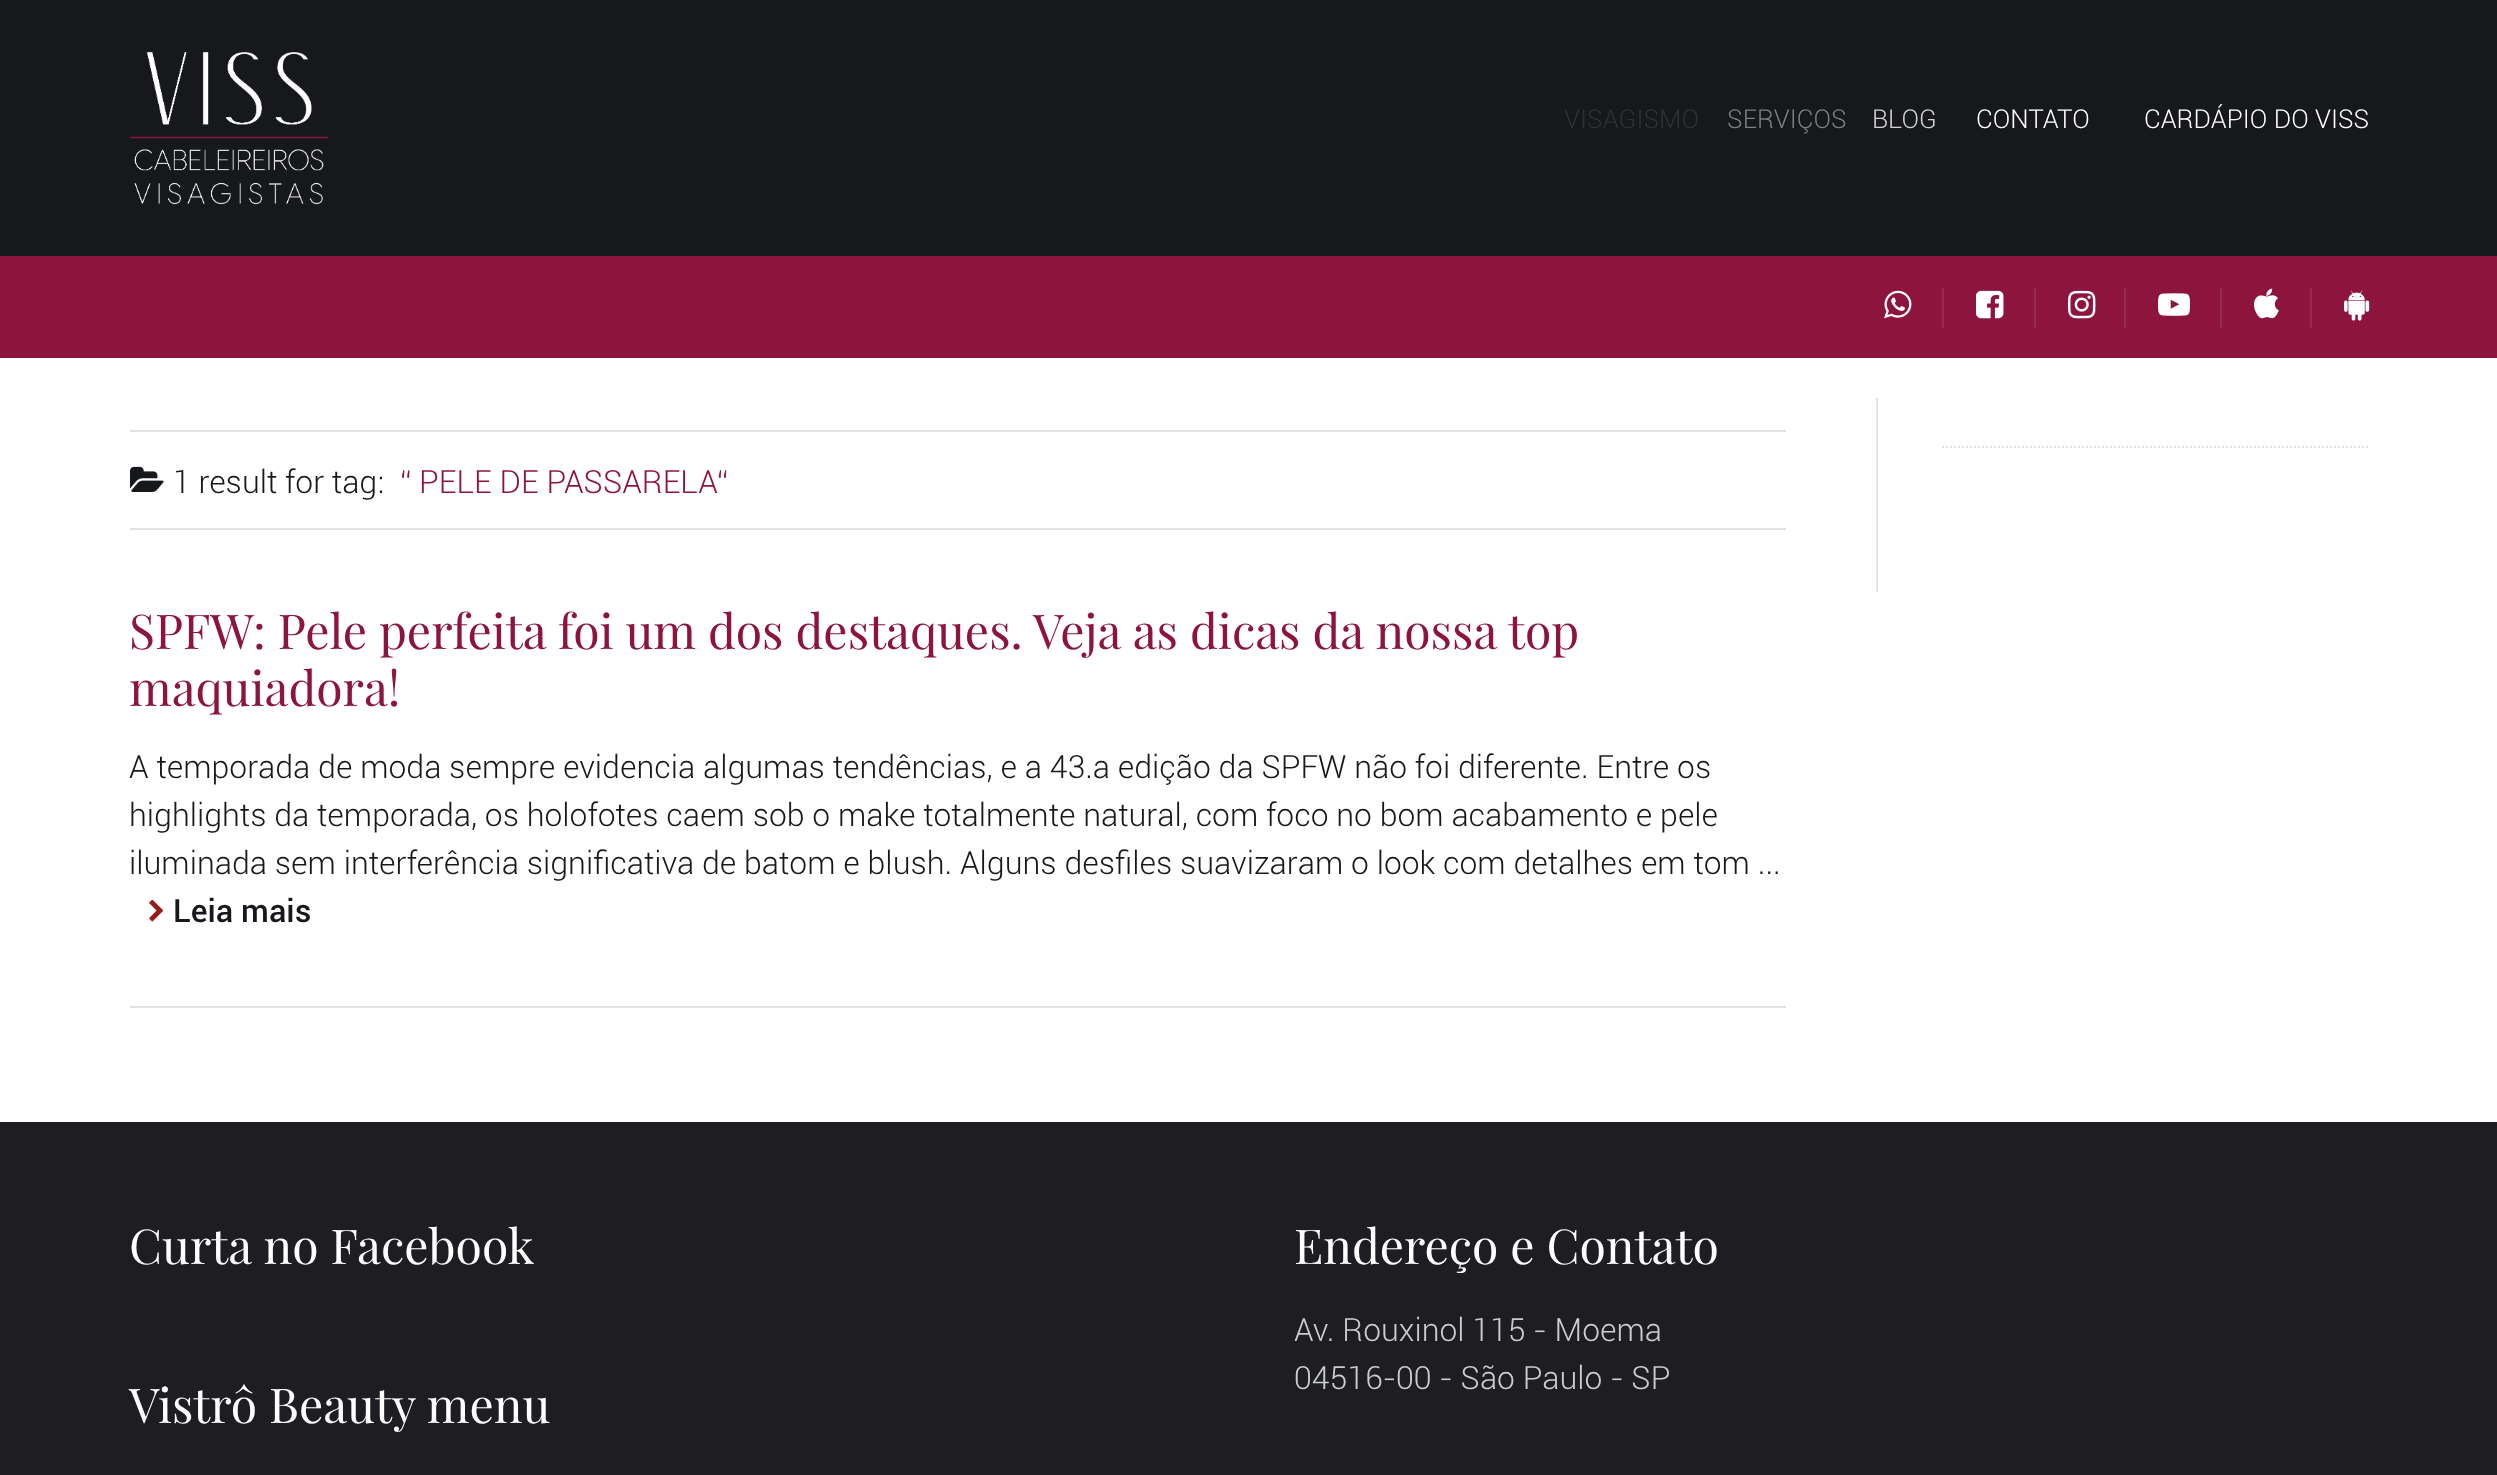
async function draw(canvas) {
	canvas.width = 2497;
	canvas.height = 1475;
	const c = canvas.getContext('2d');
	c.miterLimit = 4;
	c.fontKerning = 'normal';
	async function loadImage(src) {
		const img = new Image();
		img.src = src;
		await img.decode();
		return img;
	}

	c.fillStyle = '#fff';
	c.fillRect(0, 0, 2497, 1475);
	c.fillStyle = '#17181b';
	c.fillRect(0, 0, 2497, 256);
	c.drawImage(await loadImage('img1.png'), 129, 52, 199, 153);
	c.font = '300 26px Roboto';
	c.fillStyle = '#303133';
	c.fillText('VISAGISMO', 1564, 128);
	c.fillStyle = '#7d7e7f';
	c.fillText('SERVIÇOS', 1727, 128);
	c.fillStyle = '#d3d3d3';
	c.fillText('BLOG', 1872, 128);
	c.fillStyle = '#fff';
	c.fillText('CONTATO', 1976, 128);
	c.fillText('CARDÁPIO DO VISS', 2144, 128);
	c.fillStyle = '#8d143c';
	c.fillRect(0, 256, 2497, 102);
	c.drawImage(await loadImage('img2.png'), 1884, 290, 28, 29);
	c.fillStyle = '#982c50';
	c.fillRect(1942, 288, 2, 40);
	c.drawImage(await loadImage('img3.png'), 1976, 290, 28, 29);
	c.fillRect(2034, 288, 2, 40);
	c.drawImage(await loadImage('img4.png'), 2068, 290, 28, 29);
	c.fillRect(2124, 288, 2, 40);
	c.drawImage(await loadImage('img5.png'), 2158, 293, 32, 23);
	c.fillRect(2220, 288, 2, 40);
	c.drawImage(await loadImage('img6.png'), 2254, 288, 25, 31);
	c.fillRect(2310, 288, 2, 40);
	c.drawImage(await loadImage('img7.png'), 2344, 290, 26, 31);
	c.fillStyle = '#e3e3e3';
	c.fillRect(130, 430, 1656, 2);
	c.fillRect(130, 528, 1656, 2);
	c.drawImage(await loadImage('img8.png'), 130, 466, 34, 26);
	c.font = '300 32px Roboto';
	c.fillStyle = '#17181b';
	c.fillText('1 result for tag:', 173, 493);
	c.fillStyle = '#8d143c';
	c.fillText('“', 400, 493);
	c.fillText('PELE DE PASSARELA“', 419, 493);
	c.font = '48px Playfair Display';
	c.fillText('SPFW: Pele perfeita foi um dos destaques. Veja as dicas da nossa top', 129, 649);
	c.fillText('maquiadora!', 129, 706);
	c.font = '300 32px Roboto';
	c.fillStyle = '#17181b';
	for (const [text, x, y] of [
		['A temporada de moda sempre evidencia algumas tendências, e a 43.a edição da SPFW não foi diferente. Entre os', 129, 778],
		['highlights da temporada, os holofotes caem sob o make totalmente natural, com foco no bom acabamento e pele', 129, 826],
		['iluminada sem interferência significativa de batom e blush. Alguns desfiles suavizaram o look com detalhes em tom ...', 129, 874],
	]) {
		c.fillText(text, x, y);
	}
	c.drawImage(await loadImage('img9.png'), 149, 899, 14, 23);
	c.font = '500 32px Roboto';
	c.fillText('Leia mais', 173, 922);
	c.fillStyle = '#e3e3e3';
	c.fillRect(130, 1006, 1656, 2);
	c.fillRect(1876, 398, 2, 194);
	c.beginPath();
	c.moveTo(1942, 447);
	c.lineTo(2368, 447);
	c.strokeStyle = '#e3e3e3';
	c.lineWidth = 2;
	c.setLineDash([2, 2]);
	c.stroke();
	c.fillStyle = '#1e1e22';
	c.fillRect(0, 1122, 2497, 353);
	c.font = '48px Playfair Display';
	c.fillStyle = '#fff';
	for (const [text, x, y] of [
		['Curta no Facebook', 129, 1264],
		['Vistrô Beauty menu', 129, 1423],
		['Endereço e Contato', 1294, 1264],
	]) {
		c.fillText(text, x, y);
	}
	c.font = '300 32px Roboto';
	c.fillStyle = '#cacdcf';
	c.fillText('Av. Rouxinol 115 - Moema', 1294, 1341);
	c.fillText('04516-00 - São Paulo - SP', 1294, 1389);
}

draw(document.querySelector('canvas'));
